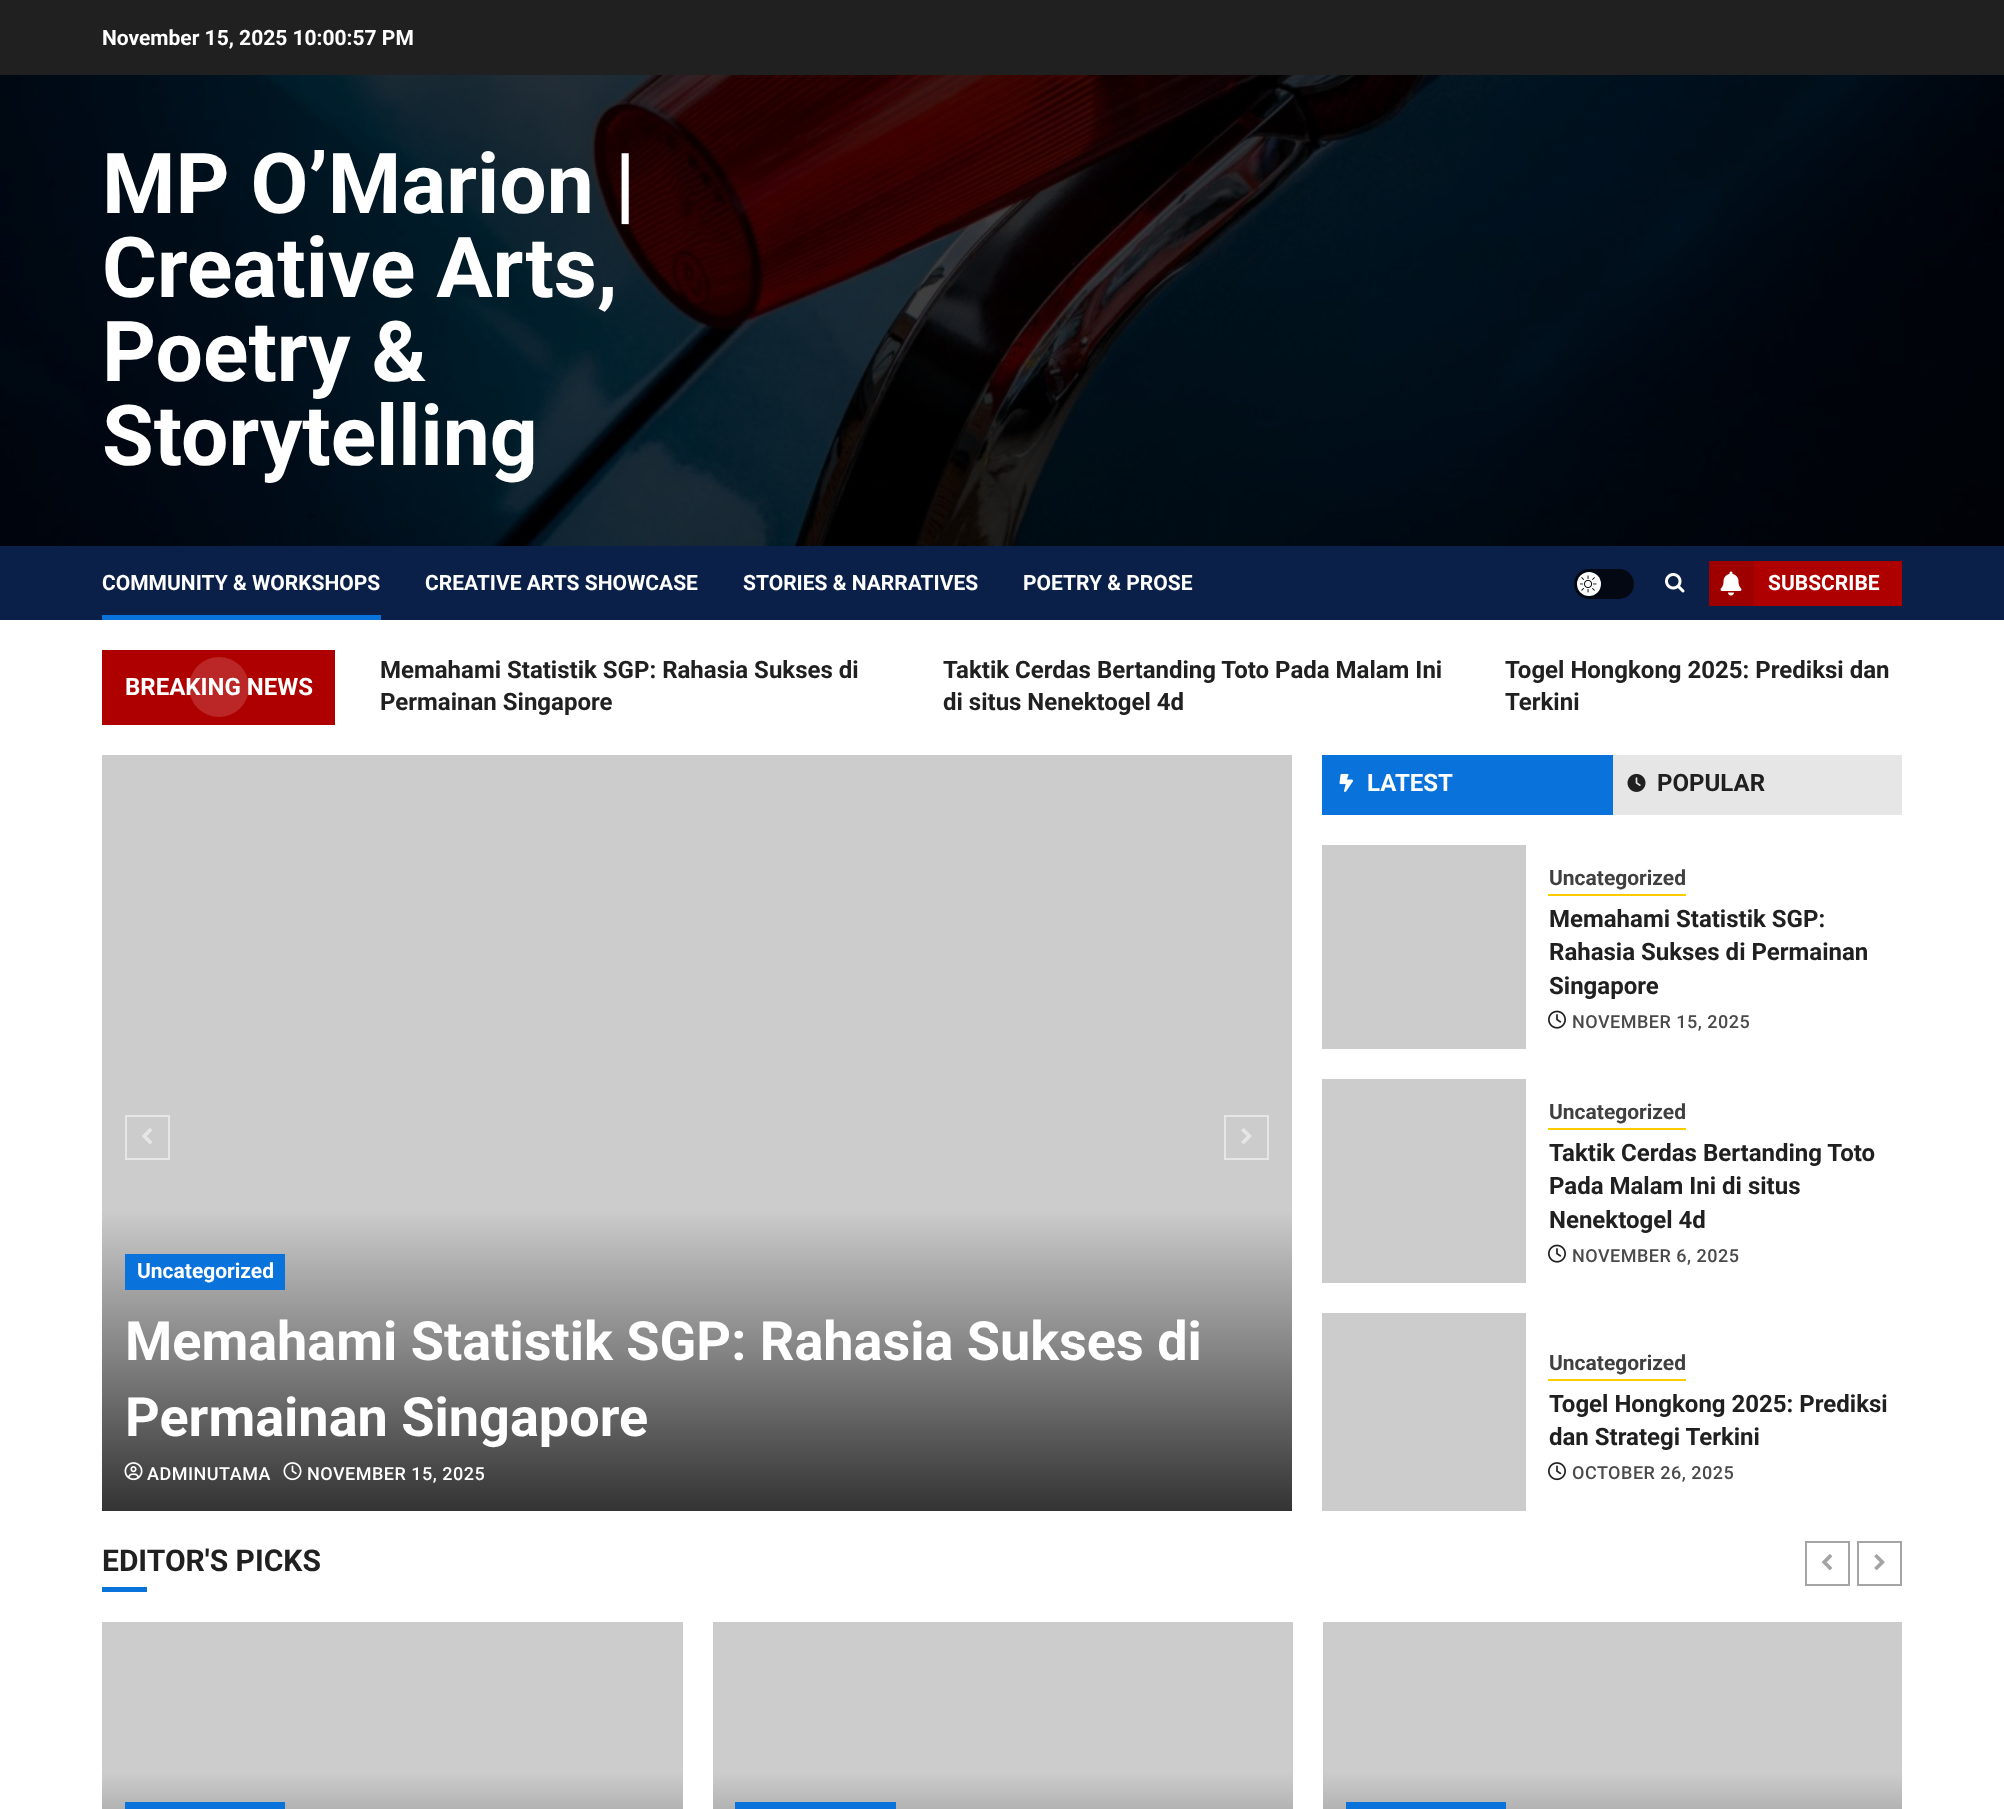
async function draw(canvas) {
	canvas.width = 2004;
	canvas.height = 1809;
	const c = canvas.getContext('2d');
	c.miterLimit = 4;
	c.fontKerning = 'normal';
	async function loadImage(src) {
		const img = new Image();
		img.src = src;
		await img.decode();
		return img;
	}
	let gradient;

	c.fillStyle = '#202020';
	c.fillRect(0, 0, 2004, 1809);
	c.font = 'bold 21px Roboto';
	c.fillStyle = '#fff';
	c.fillText('November 15, 2025 10:00:57 PM', 102, 45);
	c.drawImage(await loadImage('img1.png'), 0, 75, 2004, 471);
	c.font = 'bold 84px Roboto';
	for (const [text, x, y] of [
		['MP O’Marion |', 102, 213],
		['Creative Arts,', 102, 297],
		['Poetry &', 102, 381],
		['Storytelling', 102, 465],
	]) {
		c.fillText(text, x, y);
	}
	c.fillStyle = '#0b2048';
	c.fillRect(0, 546, 2004, 74);
	c.font = 'bold 21px Roboto';
	c.fillStyle = '#fff';
	c.fillText('COMMUNITY & WORKSHOPS', 102, 590);
	c.fillStyle = '#0a72db';
	c.fillRect(102, 615, 279, 5);
	c.fillStyle = '#fff';
	for (const [text, x, y] of [
		['CREATIVE ARTS SHOWCASE', 425, 590],
		['STORIES & NARRATIVES', 743, 590],
		['POETRY & PROSE', 1023, 590],
	]) {
		c.fillText(text, x, y);
	}
	c.fillStyle = '#030812';
	c.beginPath();
	c.roundRect(1574, 569, 60, 30, 15);
	c.fill();
	c.fillStyle = '#fff';
	c.beginPath();
	c.arc(1589, 584, 12, 0, 2 * Math.PI);
	c.fill();
	c.drawImage(await loadImage('img2.png'), 1580, 575, 17, 18);
	c.drawImage(await loadImage('img3.png'), 1665, 573, 20, 20);
	c.fillStyle = '#af0000';
	c.fillRect(1754, 561, 148, 45);
	c.fillStyle = '#9e0000';
	c.fillRect(1709, 561, 45, 45);
	c.drawImage(await loadImage('img4.png'), 1720, 571, 22, 25);
	c.fillStyle = '#fff';
	c.fillText('SUBSCRIBE', 1768, 590);
	c.fillRect(0, 620, 2004, 1189);
	c.fillStyle = '#af0000';
	c.fillRect(102, 650, 233, 75);
	c.fillStyle = '#bb2626';
	c.beginPath();
	c.arc(219, 687, 30, 0, 2 * Math.PI);
	c.fill();
	c.font = 'bold 24px Roboto';
	c.fillStyle = '#fff';
	c.fillText('BREAKING NEWS', 125, 695);
	c.fillStyle = '#202020';
	for (const [text, x, y] of [
		['Memahami Statistik SGP: Rahasia Sukses di', 380, 678],
		['Permainan Singapore', 380, 710],
		['Taktik Cerdas Bertanding Toto Pada Malam Ini', 943, 678],
		['di situs Nenektogel 4d', 943, 710],
		['Togel Hongkong 2025: Prediksi dan', 1505, 678],
		['Terkini', 1505, 710],
	]) {
		c.fillText(text, x, y);
	}
	c.fillStyle = '#ccc';
	c.fillRect(102, 755, 1190, 454);
	c.strokeStyle = '#e6e6e6';
	c.lineWidth = 2;
	c.strokeRect(126, 1116, 43, 43);
	c.drawImage(await loadImage('img5.png'), 142, 1128, 10, 16);
	c.strokeRect(1225, 1116, 43, 43);
	c.drawImage(await loadImage('img6.png'), 1241, 1128, 11, 16);
	gradient = c.createLinearGradient(698, 1209, 698, 1511);
	gradient.addColorStop(0, '#ccc');
	gradient.addColorStop(1, '#333');
	c.fillStyle = gradient;
	c.fillRect(102, 1209, 1190, 302);
	c.fillStyle = '#0a72db';
	c.fillRect(125, 1254, 160, 36);
	c.font = 'bold 21px Roboto';
	c.fillStyle = '#fff';
	c.fillText('Uncategorized', 137, 1278);
	c.font = 'bold 54px Roboto';
	c.fillText('Memahami Statistik SGP: Rahasia Sukses di', 125, 1360);
	c.fillText('Permainan Singapore', 125, 1436);
	c.drawImage(await loadImage('img7.png'), 124, 1462, 19, 19);
	c.letterSpacing = '0.5px';
	c.font = '500 18px Roboto';
	c.fillText('ADMINUTAMA', 147, 1480);
	c.drawImage(await loadImage('img8.png'), 283, 1462, 19, 19);
	c.fillText('NOVEMBER 15, 2025', 307, 1480);
	c.fillStyle = '#e6e6e6';
	c.fillRect(1613, 755, 289, 60);
	c.fillStyle = '#0a72db';
	c.fillRect(1322, 755, 291, 60);
	c.drawImage(await loadImage('img9.png'), 1339, 773, 14, 19);
	c.letterSpacing = '0px';
	c.font = 'bold 24px Roboto';
	c.fillStyle = '#fff';
	c.fillText('LATEST', 1367, 791);
	c.drawImage(await loadImage('img10.png'), 1627, 773, 19, 19);
	c.fillStyle = '#202020';
	c.fillText('POPULAR', 1657, 791);
	c.fillStyle = '#ccc';
	c.fillRect(1322, 845, 204, 204);
	c.fillStyle = '#fc0';
	c.fillRect(1548, 894, 138, 2);
	c.font = 'bold 21px Roboto';
	c.fillStyle = '#404040';
	c.fillText('Uncategorized', 1549, 885);
	c.font = 'bold 24px Roboto';
	c.fillStyle = '#202020';
	for (const [text, x, y] of [
		['Memahami Statistik SGP:', 1549, 927],
		['Rahasia Sukses di Permainan', 1549, 960],
		['Singapore', 1549, 994],
	]) {
		c.fillText(text, x, y);
	}
	c.drawImage(await loadImage('img11.png'), 1548, 1010, 18, 19);
	c.letterSpacing = '0.5px';
	c.font = '500 18px Roboto';
	c.fillStyle = '#4a4a4a';
	c.fillText('NOVEMBER 15, 2025', 1572, 1028);
	c.fillStyle = '#ccc';
	c.fillRect(1322, 1079, 204, 204);
	c.fillStyle = '#fc0';
	c.fillRect(1548, 1128, 138, 2);
	c.letterSpacing = '0px';
	c.font = 'bold 21px Roboto';
	c.fillStyle = '#404040';
	c.fillText('Uncategorized', 1549, 1119);
	c.font = 'bold 24px Roboto';
	c.fillStyle = '#202020';
	for (const [text, x, y] of [
		['Taktik Cerdas Bertanding Toto', 1549, 1161],
		['Pada Malam Ini di situs', 1549, 1194],
		['Nenektogel 4d', 1549, 1228],
	]) {
		c.fillText(text, x, y);
	}
	c.drawImage(await loadImage('img11.png'), 1548, 1244, 18, 19);
	c.letterSpacing = '0.5px';
	c.font = '500 18px Roboto';
	c.fillStyle = '#4a4a4a';
	c.fillText('NOVEMBER 6, 2025', 1572, 1262);
	c.fillStyle = '#ccc';
	c.fillRect(1322, 1313, 204, 198);
	c.fillStyle = '#fc0';
	c.fillRect(1548, 1379, 138, 2);
	c.letterSpacing = '0px';
	c.font = 'bold 21px Roboto';
	c.fillStyle = '#404040';
	c.fillText('Uncategorized', 1549, 1370);
	c.font = 'bold 24px Roboto';
	c.fillStyle = '#202020';
	c.fillText('Togel Hongkong 2025: Prediksi', 1549, 1412);
	c.fillText('dan Strategi Terkini', 1549, 1445);
	c.drawImage(await loadImage('img12.png'), 1548, 1462, 18, 19);
	c.letterSpacing = '0.5px';
	c.font = '500 18px Roboto';
	c.fillStyle = '#4a4a4a';
	c.fillText('OCTOBER 26, 2025', 1572, 1479);
	c.strokeStyle = '#a5a5a5';
	c.strokeRect(1806, 1542, 43, 43);
	c.drawImage(await loadImage('img13.png'), 1821, 1554, 12, 17);
	c.strokeRect(1858, 1542, 43, 43);
	c.drawImage(await loadImage('img14.png'), 1874, 1554, 11, 17);
	c.fillStyle = '#ccc';
	c.fillRect(102, 1622, 581, 150);
	gradient = c.createLinearGradient(392, 1772, 392, 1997);
	gradient.addColorStop(0, '#ccc');
	gradient.addColorStop(1, '#333');
	c.fillStyle = gradient;
	c.fillRect(102, 1772, 581, 37);
	c.fillStyle = '#0a72db';
	c.fillRect(125, 1802, 160, 7);
	c.fillStyle = '#ccc';
	c.fillRect(713, 1622, 580, 150);
	gradient = c.createLinearGradient(1003, 1772, 1003, 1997);
	gradient.addColorStop(0, '#ccc');
	gradient.addColorStop(1, '#333');
	c.fillStyle = gradient;
	c.fillRect(713, 1772, 580, 37);
	c.fillStyle = '#0a72db';
	c.fillRect(735, 1802, 161, 7);
	c.fillStyle = '#ccc';
	c.fillRect(1323, 1622, 579, 150);
	gradient = c.createLinearGradient(1613, 1772, 1613, 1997);
	gradient.addColorStop(0, '#ccc');
	gradient.addColorStop(1, '#333');
	c.fillStyle = gradient;
	c.fillRect(1323, 1772, 579, 37);
	c.fillStyle = '#0a72db';
	c.fillRect(1346, 1802, 160, 7);
	c.letterSpacing = '0px';
	c.font = 'bold 30px Roboto';
	c.fillStyle = '#202020';
	c.fillText('EDITOR\'S PICKS', 102, 1571);
	c.fillStyle = '#0a72db';
	c.fillRect(102, 1587, 45, 5);
}

draw(document.querySelector('canvas'));
